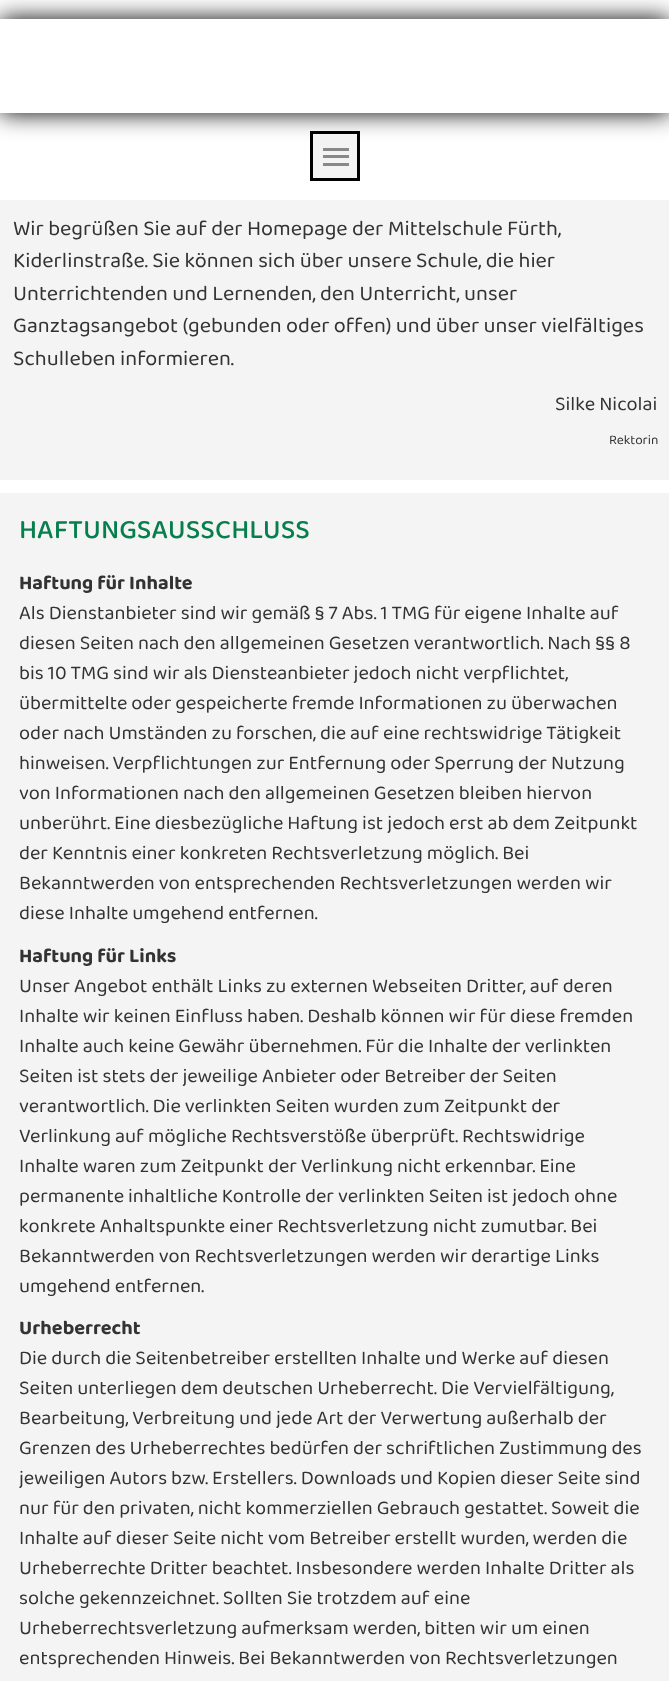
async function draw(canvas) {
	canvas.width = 669;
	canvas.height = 1681;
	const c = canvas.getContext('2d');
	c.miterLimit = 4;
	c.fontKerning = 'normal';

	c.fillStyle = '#fff';
	c.fillRect(0, 0, 669, 1681);
	c.save();
	c.beginPath();
	c.moveTo(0, 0);
	c.lineTo(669, 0);
	c.lineTo(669, 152);
	c.lineTo(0, 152);
	c.closePath();
	c.moveTo(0, 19);
	c.lineTo(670, 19);
	c.lineTo(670, 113);
	c.lineTo(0, 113);
	c.closePath();
	c.clip('evenodd');
	c.fillStyle = '#000';
	c.filter = 'blur(12.5px)';
	c.beginPath();
	c.rect(0, 19, 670, 94);
	c.fill();
	c.filter = 'none';
	c.restore();
	c.fillStyle = '#f3f3f3';
	c.fillRect(313, 135, 44, 43);
	c.strokeStyle = '#000';
	c.lineWidth = 3;
	c.strokeRect(311.5, 132.5, 47, 47);
	for (const [x, y, w, h, color] of [
		[323, 148, 26, 3, '#888'],
		[323, 155, 26, 3, '#888'],
		[323, 163, 26, 3, '#888'],
		[0, 200, 669, 280, '#f4f4f4'],
	]) {
		c.fillStyle = color;
		c.fillRect(x, y, w, h);
	}
	c.font = '21.7px "Baloo 2"';
	c.fillStyle = '#333';
	for (const [text, x, y] of [
		['Wir begrüßen Sie auf der Homepage der Mittelschule Fürth,', 13, 235],
		['Kiderlinstraße. Sie können sich über unsere Schule, die hier', 13, 267],
		['Unterrichtenden und Lernenden, den Unterricht, unser', 13, 300],
		['Ganztagsangebot (gebunden oder offen) und über unser vielfältiges', 13, 332],
		['Schulleben informieren.', 13, 365],
	]) {
		c.fillText(text, x, y);
	}
	c.font = '20px "Baloo 2"';
	c.fillText('Silke Nicolai', 555, 410);
	c.font = '13.5px "Baloo 2"';
	c.fillText('Rektorin', 609, 444);
	c.fillStyle = '#f4f4f4';
	c.fillRect(0, 493, 669, 1188);
	c.font = '500 27.5px "Baloo 2"';
	c.fillStyle = '#077f4c';
	c.fillText('HAFTUNGSAUSSCHLUSS', 19, 538);
	c.font = 'bold 20px "Baloo 2"';
	c.fillStyle = '#333';
	c.fillText('Haftung für Inhalte', 19, 589);
	c.font = '20px "Baloo 2"';
	for (const [text, x, y] of [
		['Als Dienstanbieter sind wir gemäß § 7 Abs. 1 TMG für eigene Inhalte auf', 19, 619],
		['diesen Seiten nach den allgemeinen Gesetzen verantwortlich. Nach §§ 8', 19, 649],
		['bis 10 TMG sind wir als Diensteanbieter jedoch nicht verpflichtet,', 19, 679],
		['übermittelte oder gespeicherte fremde Informationen zu überwachen', 19, 709],
		['oder nach Umständen zu forschen, die auf eine rechtswidrige Tätigkeit', 19, 739],
		['hinweisen. Verpflichtungen zur Entfernung oder Sperrung der Nutzung', 19, 769],
		['von Informationen nach den allgemeinen Gesetzen bleiben hiervon', 19, 799],
		['unberührt. Eine diesbezügliche Haftung ist jedoch erst ab dem Zeitpunkt', 19, 829],
		['der Kenntnis einer konkreten Rechtsverletzung möglich. Bei', 19, 859],
		['Bekanntwerden von entsprechenden Rechtsverletzungen werden wir', 19, 889],
		['diese Inhalte umgehend entfernen.', 19, 919],
	]) {
		c.fillText(text, x, y);
	}
	c.font = 'bold 20px "Baloo 2"';
	c.fillText('Haftung für Links', 19, 962);
	c.font = '20px "Baloo 2"';
	for (const [text, x, y] of [
		['Unser Angebot enthält Links zu externen Webseiten Dritter, auf deren', 19, 992],
		['Inhalte wir keinen Einfluss haben. Deshalb können wir für diese fremden', 19, 1022],
		['Inhalte auch keine Gewähr übernehmen. Für die Inhalte der verlinkten', 19, 1052],
		['Seiten ist stets der jeweilige Anbieter oder Betreiber der Seiten', 19, 1082],
		['verantwortlich. Die verlinkten Seiten wurden zum Zeitpunkt der', 19, 1112],
		['Verlinkung auf mögliche Rechtsverstöße überprüft. Rechtswidrige', 19, 1142],
		['Inhalte waren zum Zeitpunkt der Verlinkung nicht erkennbar. Eine', 19, 1172],
		['permanente inhaltliche Kontrolle der verlinkten Seiten ist jedoch ohne', 19, 1202],
		['konkrete Anhaltspunkte einer Rechtsverletzung nicht zumutbar. Bei', 19, 1232],
		['Bekanntwerden von Rechtsverletzungen werden wir derartige Links', 19, 1262],
		['umgehend entfernen.', 19, 1292],
	]) {
		c.fillText(text, x, y);
	}
	c.font = 'bold 20px "Baloo 2"';
	c.fillText('Urheberrecht', 19, 1334);
	c.font = '20px "Baloo 2"';
	for (const [text, x, y] of [
		['Die durch die Seitenbetreiber erstellten Inhalte und Werke auf diesen', 19, 1364],
		['Seiten unterliegen dem deutschen Urheberrecht. Die Vervielfältigung,', 19, 1394],
		['Bearbeitung, Verbreitung und jede Art der Verwertung außerhalb der', 19, 1424],
		['Grenzen des Urheberrechtes bedürfen der schriftlichen Zustimmung des', 19, 1454],
		['jeweiligen Autors bzw. Erstellers. Downloads und Kopien dieser Seite sind', 19, 1484],
		['nur für den privaten, nicht kommerziellen Gebrauch gestattet. Soweit die', 19, 1514],
		['Inhalte auf dieser Seite nicht vom Betreiber erstellt wurden, werden die', 19, 1544],
		['Urheberrechte Dritter beachtet. Insbesondere werden Inhalte Dritter als', 19, 1574],
		['solche gekennzeichnet. Sollten Sie trotzdem auf eine', 19, 1604],
		['Urheberrechtsverletzung aufmerksam werden, bitten wir um einen', 19, 1634],
		['entsprechenden Hinweis. Bei Bekanntwerden von Rechtsverletzungen', 19, 1664],
	]) {
		c.fillText(text, x, y);
	}
}

draw(document.querySelector('canvas'));
